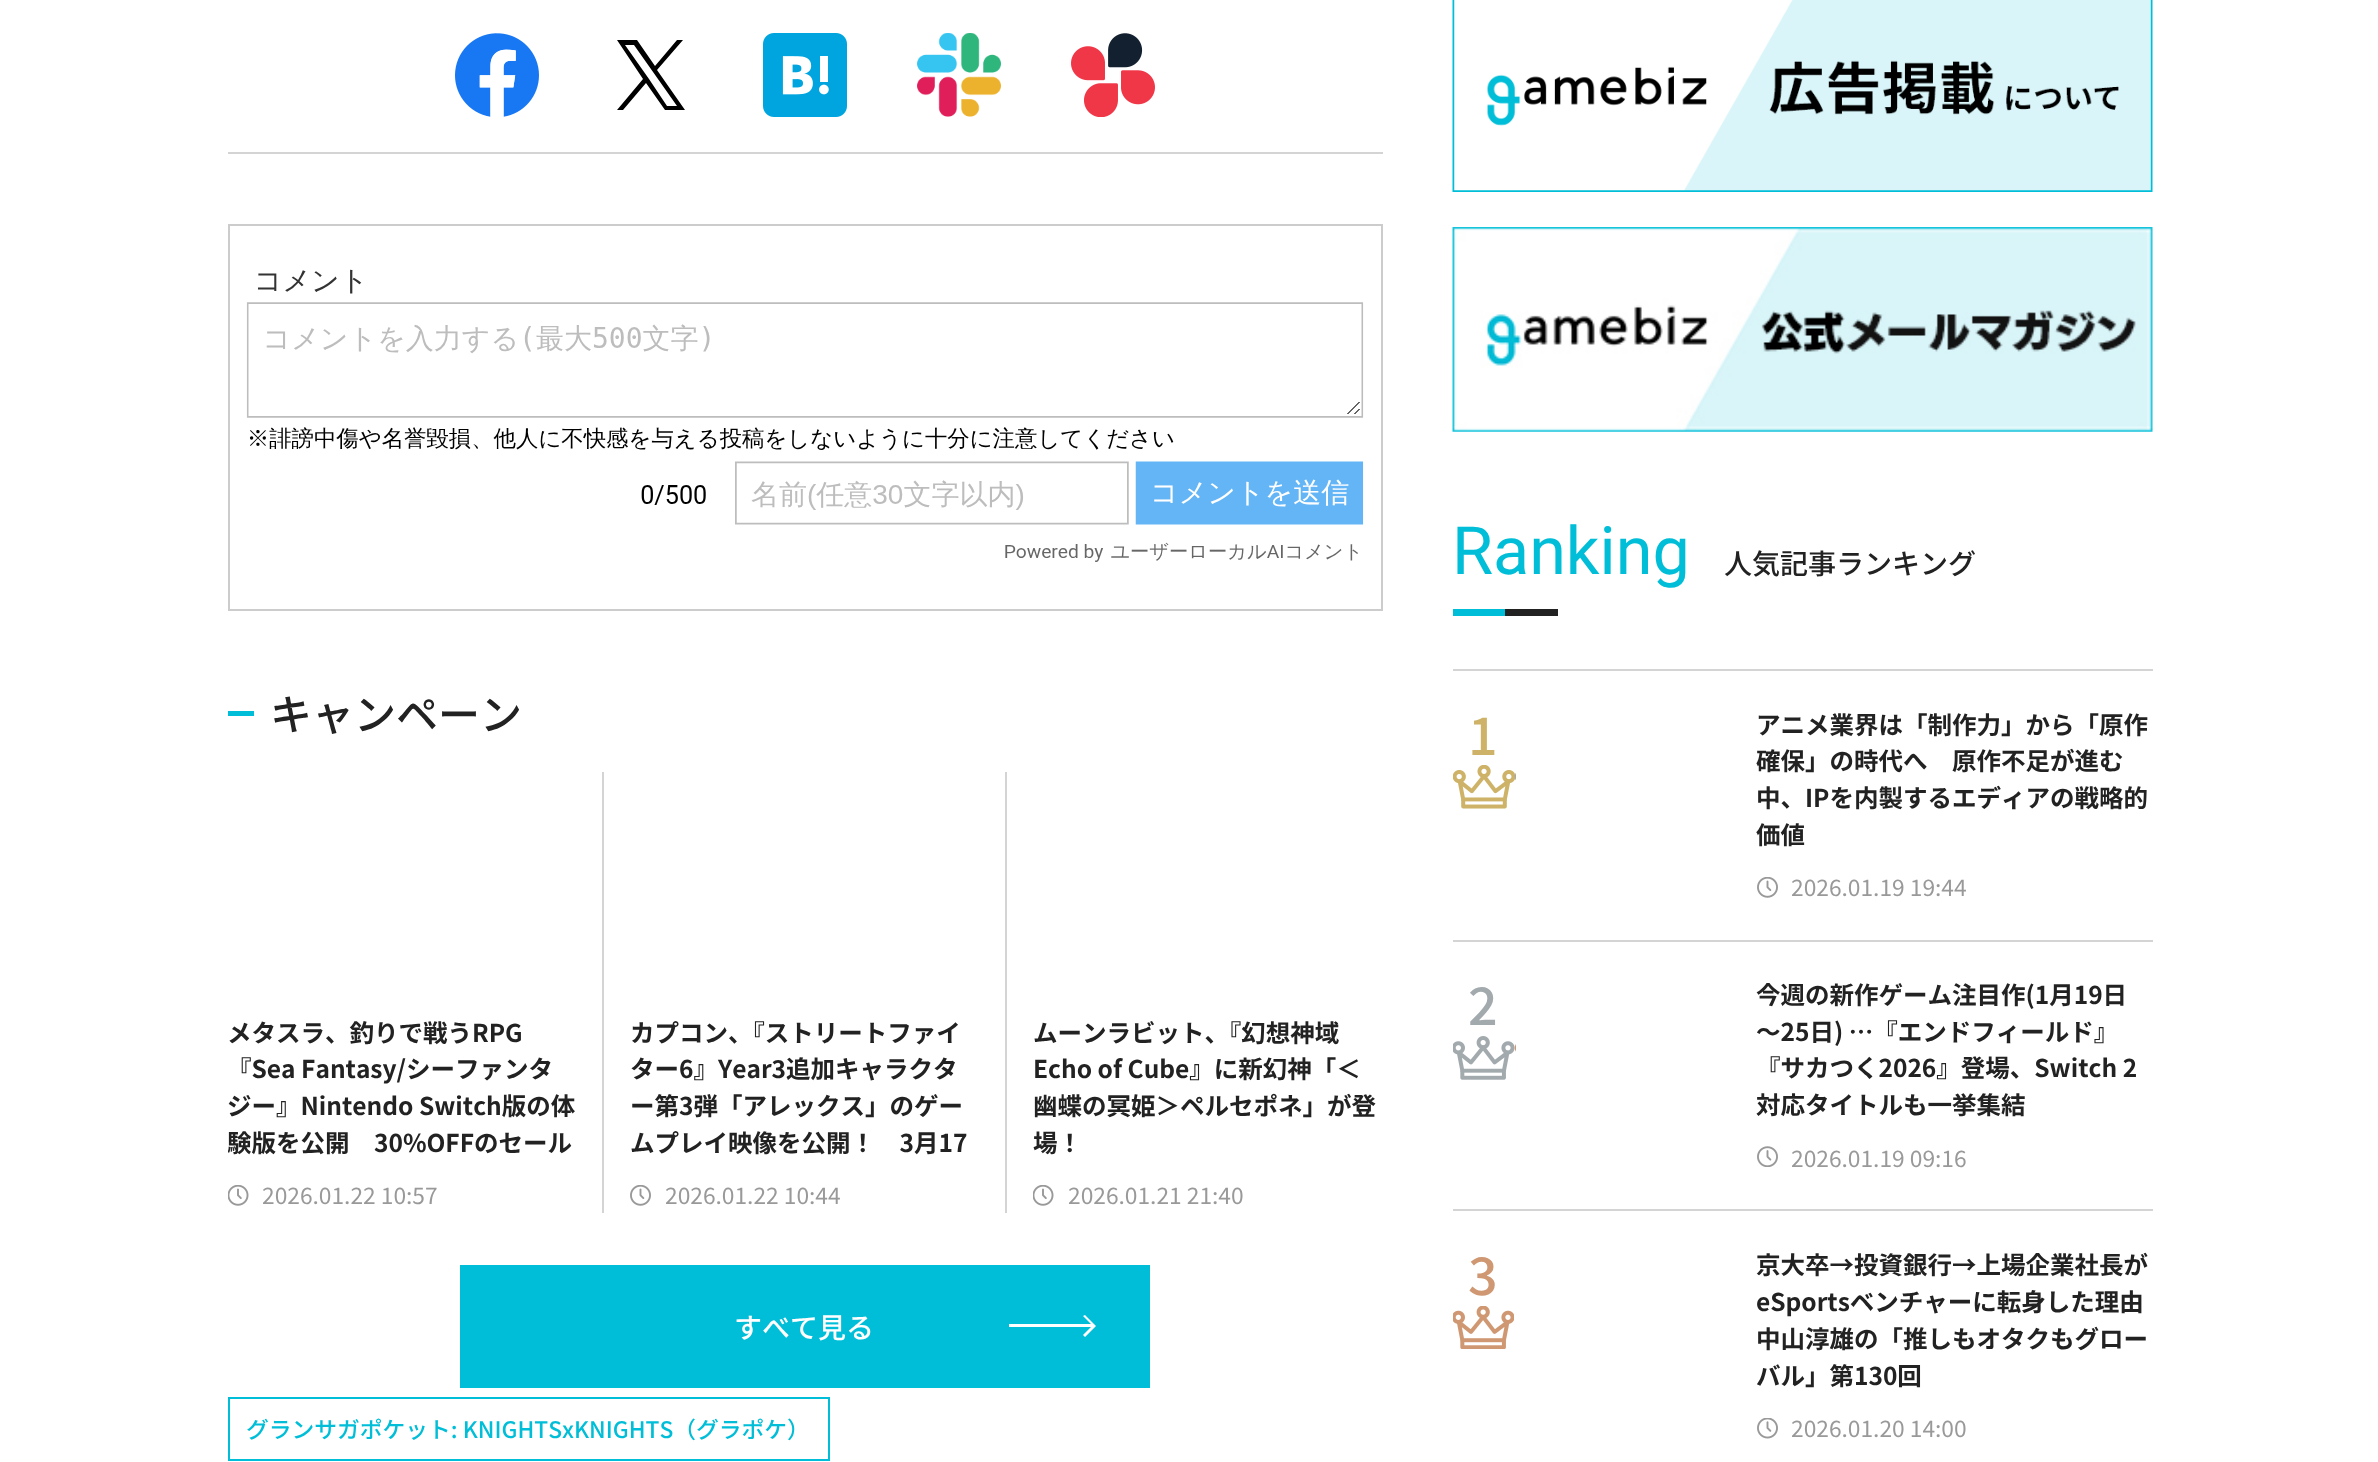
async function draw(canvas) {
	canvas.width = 2378;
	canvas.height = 1462;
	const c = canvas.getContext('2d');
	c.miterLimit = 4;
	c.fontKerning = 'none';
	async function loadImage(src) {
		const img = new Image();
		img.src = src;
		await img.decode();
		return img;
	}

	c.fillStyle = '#fff';
	c.fillRect(0, 0, 2378, 1462);
	c.fillStyle = '#d4d4d4';
	c.fillRect(228, 152, 1155, 2);
	c.drawImage(await loadImage('img1.png'), 455, 33, 84, 84);
	c.fillStyle = '#000';
	c.beginPath();
	c.moveTo(657, 70);
	c.lineTo(683, 40);
	c.lineTo(677, 40);
	c.lineTo(655, 66);
	c.lineTo(637, 40);
	c.lineTo(617, 40);
	c.lineTo(643, 79);
	c.lineTo(617, 110);
	c.lineTo(623, 110);
	c.lineTo(646, 83);
	c.lineTo(665, 110);
	c.lineTo(685, 110);
	c.closePath();
	c.moveTo(649, 79);
	c.lineTo(625, 45);
	c.lineTo(634, 45);
	c.lineTo(677, 106);
	c.lineTo(667, 106);
	c.closePath();
	c.fill();
	c.drawImage(await loadImage('img2.png'), 763, 33, 84, 84);
	c.drawImage(await loadImage('img3.png'), 917, 33, 84, 84);
	c.drawImage(await loadImage('img4.png'), 1071, 33, 84, 84);
	c.strokeStyle = '#ccc';
	c.lineWidth = 2;
	c.strokeRect(229, 225, 1153, 385);
	c.drawImage(await loadImage('img5.png'), 246, 269, 1118, 293);
	c.fillStyle = '#00bed7';
	c.fillRect(228, 711, 26, 5);
	c.font = '500 42px Noto Sans JP';
	c.fillStyle = '#222';
	c.fillText('キャンペーン', 270, 730);
	c.font = 'bold 24.5px Noto Sans JP';
	for (const [text, x, y] of [
		['メタスラ、釣りで戦うRPG', 227, 1042],
		['『Sea Fantasy/シーファンタ', 227, 1078],
		['ジー』Nintendo Switch版の体', 227, 1115],
	]) {
		c.fillText(text, x, y);
	}
	c.save();
	c.beginPath();
	c.rect(228, 1013, 348, 147);
	c.clip();
	c.fillText('験版を公開　30%OFFのセール', 227, 1152);
	c.restore();
	c.drawImage(await loadImage('img6.png'), 228, 1185, 21, 21);
	c.font = '22.75px Noto Sans JP';
	c.fillStyle = '#999';
	c.fillText('2026.01.22 10:57', 262, 1204);
	c.fillStyle = '#d4d4d4';
	c.fillRect(602, 772, 2, 441);
	c.font = 'bold 24.5px Noto Sans JP';
	c.fillStyle = '#222';
	for (const [text, x, y] of [
		['カプコン、『ストリートファイ', 630, 1042],
		['ター6』Year3追加キャラクタ', 630, 1078],
		['ー第3弾「アレックス」のゲー', 630, 1115],
		['ムプレイ映像を公開！　3月17', 630, 1152],
	]) {
		c.fillText(text, x, y);
	}
	c.drawImage(await loadImage('img7.png'), 630, 1185, 21, 21);
	c.font = '22.75px Noto Sans JP';
	c.fillStyle = '#999';
	c.fillText('2026.01.22 10:44', 665, 1204);
	c.fillStyle = '#d4d4d4';
	c.fillRect(1005, 772, 2, 441);
	c.font = 'bold 24.5px Noto Sans JP';
	c.fillStyle = '#222';
	for (const [text, x, y] of [
		['ムーンラビット、『幻想神域', 1033, 1042],
		['Echo of Cube』に新幻神「＜', 1033, 1078],
		['幽蝶の冥姫＞ペルセポネ」が登', 1033, 1115],
		['場！', 1033, 1152],
	]) {
		c.fillText(text, x, y);
	}
	c.drawImage(await loadImage('img6.png'), 1033, 1185, 21, 21);
	c.font = '22.75px Noto Sans JP';
	c.fillStyle = '#999';
	c.fillText('2026.01.21 21:40', 1068, 1204);
	c.fillStyle = '#00bed7';
	c.fillRect(460, 1265, 690, 123);
	c.font = '500 28px Noto Sans JP';
	c.fillStyle = '#fff';
	c.fillText('すべて見る', 734, 1338);
	c.beginPath();
	c.moveTo(1009, 1324);
	c.lineTo(1009, 1327);
	c.lineTo(1091, 1327);
	c.lineTo(1083, 1335);
	c.lineTo(1085, 1337);
	c.lineTo(1096, 1326);
	c.lineTo(1085, 1315);
	c.lineTo(1083, 1316);
	c.lineTo(1091, 1324);
	c.closePath();
	c.fill();
	c.strokeStyle = '#00bed7';
	c.strokeRect(229, 1398, 600, 62);
	c.font = '500 22.75px Noto Sans JP';
	c.fillStyle = '#00bed7';
	c.fillText('グランサガポケット: KNIGHTSxKNIGHTS（グラポケ）', 246, 1438);
	c.drawImage(await loadImage('img8.png'), 1452, 0, 701, 192);
	c.drawImage(await loadImage('img9.png'), 1452, 227, 701, 205);
	c.font = '66.5px Roboto';
	c.fillText('Ranking', 1452, 574);
	c.font = '500 28px Noto Sans JP';
	c.fillStyle = '#222';
	c.fillText('人気記事ランキング', 1724, 574);
	for (const [x, y, w, h, color] of [
		[1453, 609, 52, 7, '#00bed7'],
		[1505, 609, 53, 7, '#222'],
		[1453, 669, 700, 2, '#d4d4d4'],
		[1453, 940, 700, 2, '#d4d4d4'],
	]) {
		c.fillStyle = color;
		c.fillRect(x, y, w, h);
	}
	c.font = '500 52px Noto Sans JP';
	c.fillStyle = '#cdb267';
	c.fillText('1', 1468, 755);
	c.font = 'bold 24.5px Noto Sans JP';
	c.fillStyle = '#222';
	for (const [text, x, y] of [
		['アニメ業界は「制作力」から「原作', 1756, 734],
		['確保」の時代へ　原作不足が進む', 1756, 770],
		['中、IPを内製するエディアの戦略的', 1756, 807],
		['価値', 1756, 844],
	]) {
		c.fillText(text, x, y);
	}
	c.drawImage(await loadImage('img7.png'), 1757, 877, 21, 21);
	c.font = '22.75px Noto Sans JP';
	c.fillStyle = '#999';
	c.fillText('2026.01.19 19:44', 1791, 896);
	c.drawImage(await loadImage('img10.png'), 1453, 765, 63, 44);
	c.fillStyle = '#d4d4d4';
	c.fillRect(1453, 1209, 700, 2);
	c.font = '500 52px Noto Sans JP';
	c.fillStyle = '#a2aaae';
	c.fillText('2', 1468, 1025);
	c.font = 'bold 24.5px Noto Sans JP';
	c.fillStyle = '#222';
	for (const [text, x, y] of [
		['今週の新作ゲーム注目作(1月19日', 1756, 1004],
		['～25日) …『エンドフィールド』', 1756, 1041],
		['『サカつく2026』登場、Switch 2', 1756, 1077],
		['対応タイトルも一挙集結', 1756, 1114],
	]) {
		c.fillText(text, x, y);
	}
	c.drawImage(await loadImage('img11.png'), 1757, 1146, 21, 21);
	c.font = '22.75px Noto Sans JP';
	c.fillStyle = '#999';
	c.fillText('2026.01.19 09:16', 1791, 1167);
	c.drawImage(await loadImage('img12.png'), 1453, 1036, 63, 44);
	c.font = '500 52px Noto Sans JP';
	c.fillStyle = '#cf9873';
	c.fillText('3', 1468, 1295);
	c.font = 'bold 24.5px Noto Sans JP';
	c.fillStyle = '#222';
	for (const [text, x, y] of [
		['京大卒→投資銀行→上場企業社長が', 1756, 1274],
		['eSportsベンチャーに転身した理由', 1756, 1311],
		['中山淳雄の「推しもオタクもグロー', 1756, 1348],
		['バル」第130回', 1756, 1385],
	]) {
		c.fillText(text, x, y);
	}
	c.drawImage(await loadImage('img13.png'), 1757, 1418, 21, 21);
	c.font = '22.75px Noto Sans JP';
	c.fillStyle = '#999';
	c.fillText('2026.01.20 14:00', 1791, 1437);
	c.drawImage(await loadImage('img14.png'), 1453, 1306, 61, 43);
}

draw(document.querySelector('canvas'));
